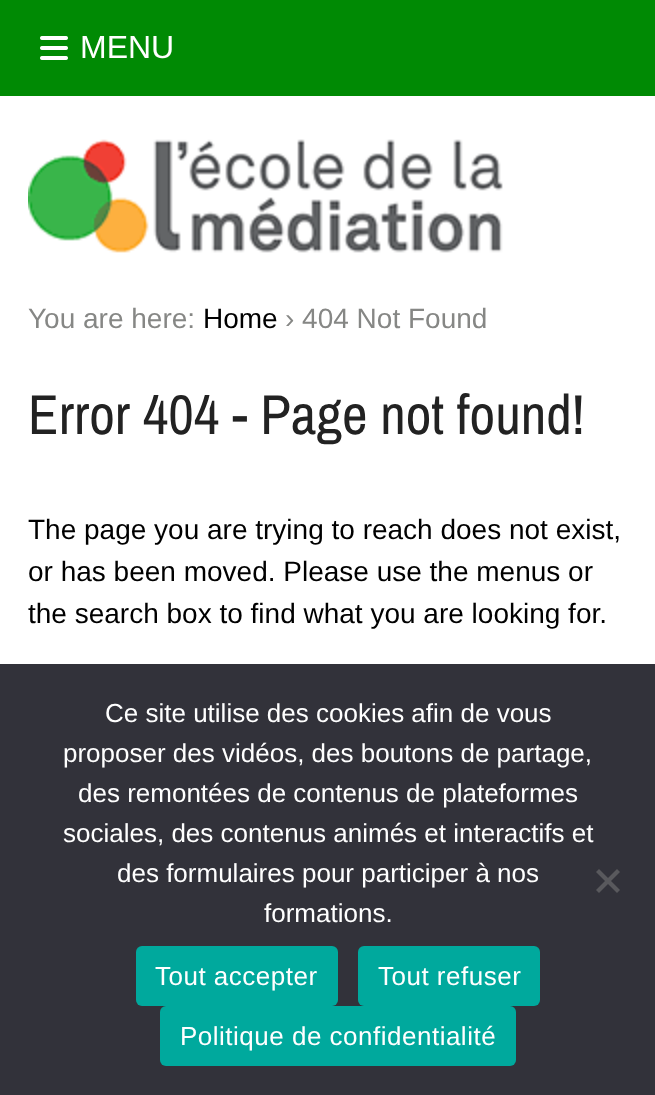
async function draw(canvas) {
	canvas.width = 655;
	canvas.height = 1095;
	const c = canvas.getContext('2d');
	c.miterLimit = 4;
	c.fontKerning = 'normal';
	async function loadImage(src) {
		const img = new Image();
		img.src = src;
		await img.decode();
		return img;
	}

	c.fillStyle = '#fff';
	c.fillRect(0, 0, 655, 1095);
	c.fillStyle = '#008a04';
	c.fillRect(0, 0, 655, 96);
	c.drawImage(await loadImage('img1.png'), 40, 36, 28, 24);
	c.font = '32px Liberation Sans';
	c.fillStyle = '#fff';
	c.fillText('MENU', 80, 58);
	c.drawImage(await loadImage('img2.png'), 28, 139, 475, 114);
	c.font = '28px Liberation Sans';
	c.fillStyle = '#868785';
	c.fillText('You are here:', 28, 328);
	c.fillStyle = '#000';
	c.fillText('Home', 203, 328);
	c.fillStyle = '#868785';
	c.fillText('› 404 Not Found', 285, 328);
	c.font = '56px Archivo Narrow';
	c.fillStyle = '#222';
	c.fillText('Error 404 - Page not found!', 28, 434);
	c.font = '28px Liberation Sans';
	c.fillStyle = '#000';
	for (const [text, x, y] of [
		['The page you are trying to reach does not exist,', 28, 539],
		['or has been moved. Please use the menus or', 28, 581],
		['the search box to find what you are looking for.', 28, 623],
	]) {
		c.fillText(text, x, y);
	}
	c.fillStyle = '#32323a';
	c.fillRect(0, 664, 655, 431);
	c.font = '26px Liberation Sans';
	c.fillStyle = '#fff';
	for (const [text, x, y] of [
		['Ce site utilise des cookies afin de vous', 105, 722],
		['proposer des vidéos, des boutons de partage,', 63, 762],
		['des remontées de contenus de plateformes', 78, 802],
		['sociales, des contenus animés et interactifs et', 63, 842],
		['des formulaires pour participer à nos', 117, 882],
		['formations.', 264, 922],
	]) {
		c.fillText(text, x, y);
	}
	c.fillStyle = '#59595d';
	c.beginPath();
	c.moveTo(617, 869);
	c.lineTo(620, 872);
	c.lineTo(599, 893);
	c.lineTo(596, 890);
	c.closePath();
	c.fill();
	c.beginPath();
	c.moveTo(596, 872);
	c.lineTo(599, 869);
	c.lineTo(620, 890);
	c.lineTo(617, 893);
	c.closePath();
	c.fill();
	c.fillStyle = '#00a99d';
	c.beginPath();
	c.roundRect(136, 946, 202, 60, 6);
	c.fill();
	c.letterSpacing = '0.5px';
	c.fillStyle = '#fff';
	c.fillText('Tout accepter', 155, 985);
	c.fillStyle = '#00a99d';
	c.beginPath();
	c.roundRect(358, 946, 182, 60, 6);
	c.fill();
	c.fillStyle = '#fff';
	c.fillText('Tout refuser', 378, 985);
	c.fillStyle = '#00a99d';
	c.beginPath();
	c.roundRect(160, 1006, 356, 60, 6);
	c.fill();
	c.fillStyle = '#fff';
	c.fillText('Politique de confidentialité', 180, 1045);
}

draw(document.querySelector('canvas'));
